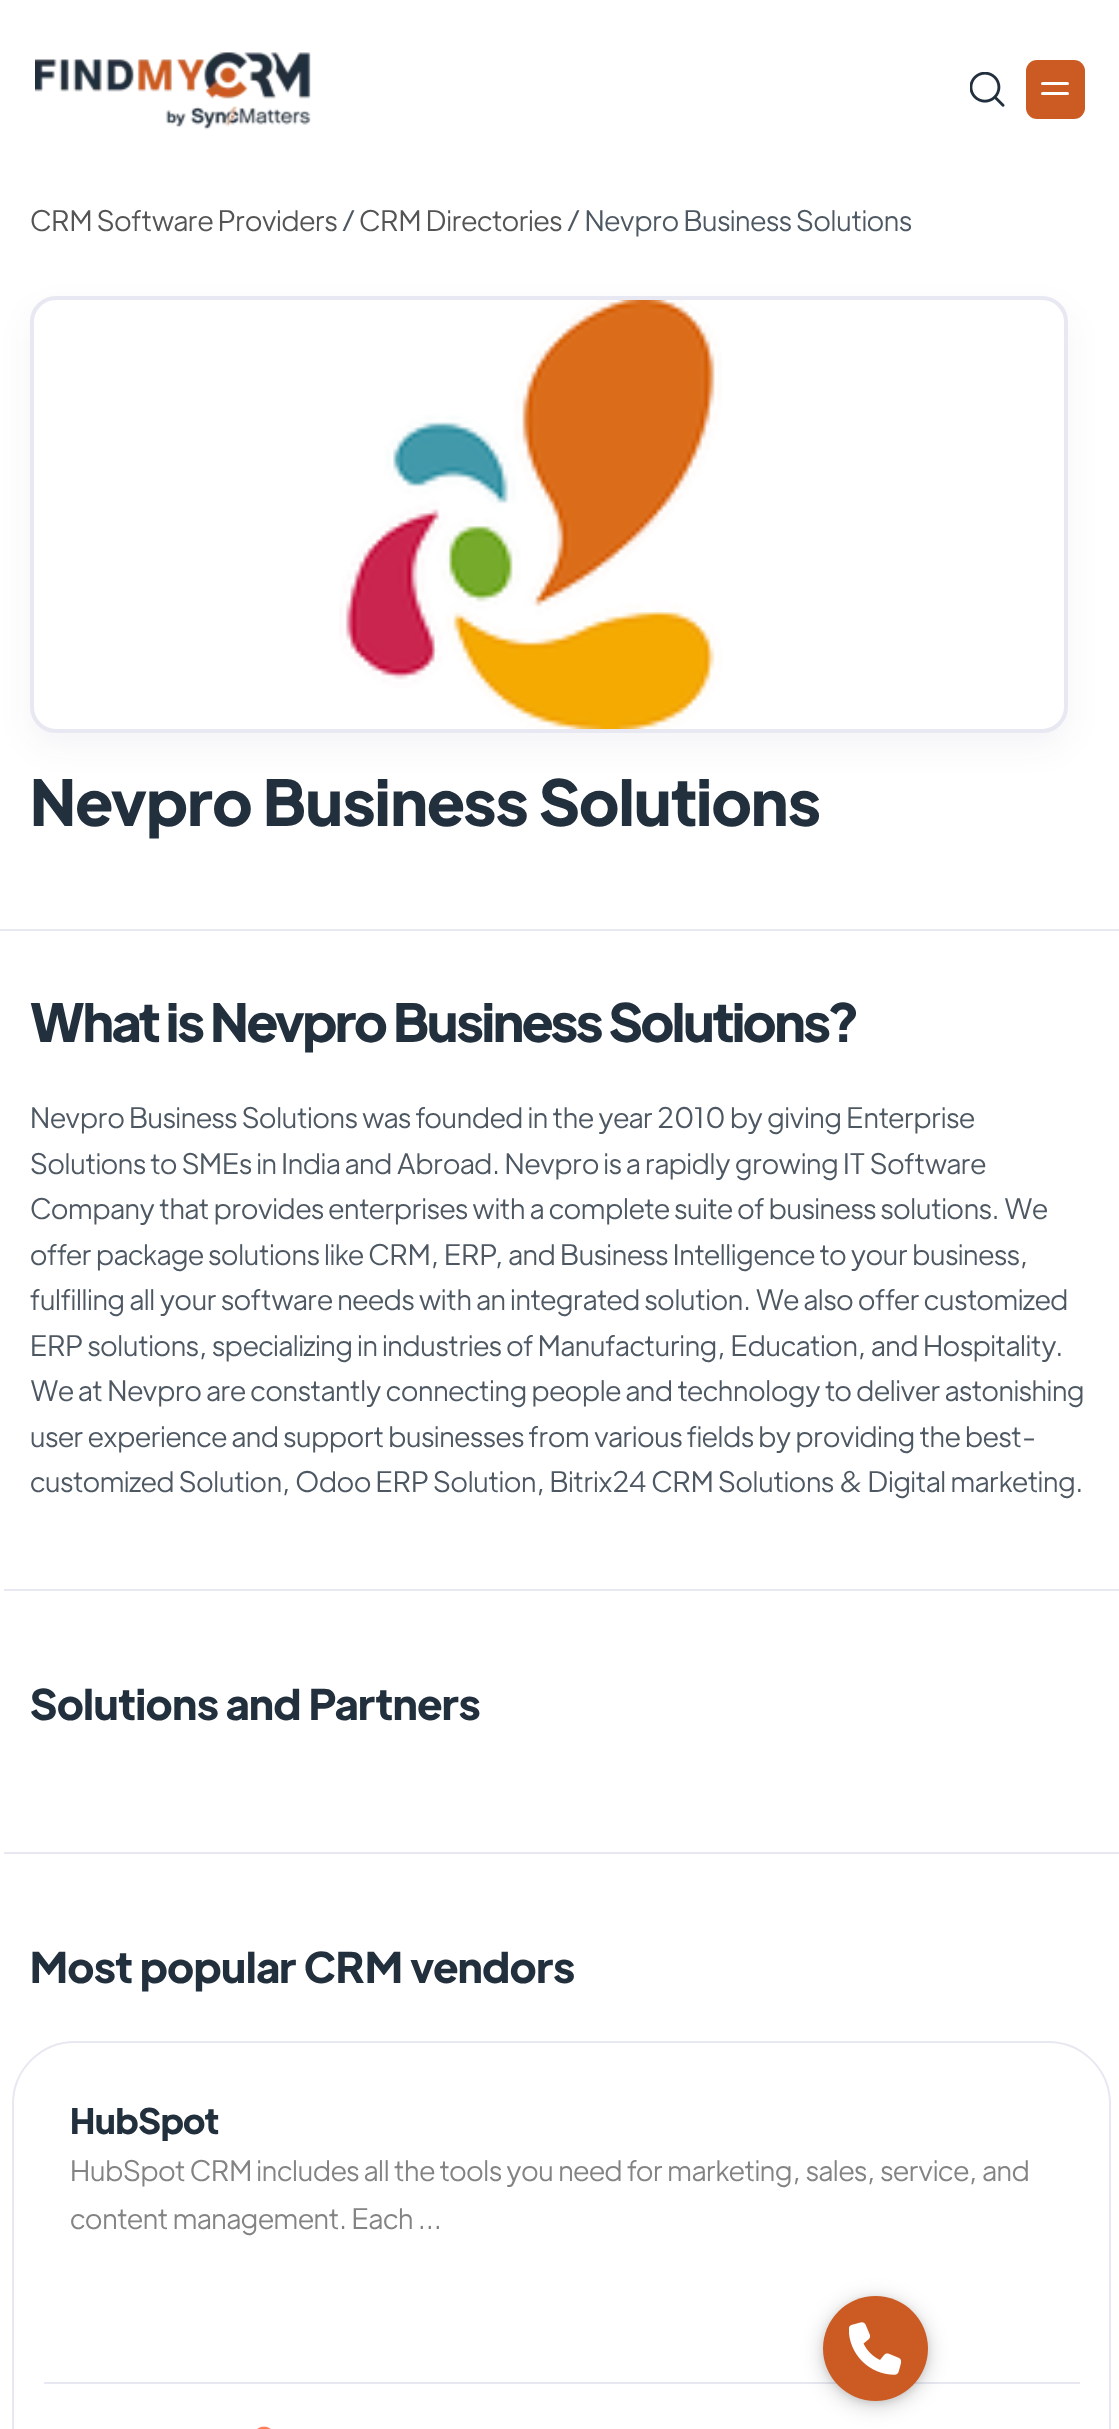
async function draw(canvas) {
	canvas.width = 1119;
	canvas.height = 2429;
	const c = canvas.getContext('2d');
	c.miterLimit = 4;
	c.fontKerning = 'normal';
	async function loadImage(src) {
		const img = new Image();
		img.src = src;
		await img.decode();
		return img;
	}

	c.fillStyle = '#fff';
	c.fillRect(0, 0, 1119, 2429);
	c.drawImage(await loadImage('img1.png'), 35, 52, 276, 78);
	c.drawImage(await loadImage('img2.png'), 970, 72, 35, 35);
	c.fillStyle = '#cc5b23';
	c.beginPath();
	c.roundRect(1026, 60, 59, 59, 11);
	c.fill();
	c.fillStyle = '#fff';
	c.beginPath();
	c.roundRect(1041, 82, 28, 3, 1.5);
	c.fill();
	c.beginPath();
	c.roundRect(1041, 92, 28, 3, 1.5);
	c.fill();
	c.letterSpacing = '-0.18px';
	c.font = '300 28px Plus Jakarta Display';
	c.fillStyle = '#555454';
	c.fillText('CRM Software Providers', 30, 231);
	c.fillStyle = '#4e5863';
	c.fillText('/', 342, 231);
	c.fillStyle = '#555454';
	c.fillText('CRM Directories', 359, 231);
	c.fillStyle = '#4e5863';
	c.fillText('/ Nevpro Business Solutions', 567, 231);
	c.fillStyle = '#1f25590d';
	c.filter = 'blur(16px)';
	c.beginPath();
	c.roundRect(30, 310, 1038, 437, 26);
	c.fill();
	c.filter = 'none';
	c.fillStyle = '#fff';
	c.beginPath();
	c.roundRect(30, 296, 1038, 437, 26);
	c.fill();
	c.drawImage(await loadImage('img3.png'), 339, 300, 383, 429);
	c.beginPath();
	c.roundRect(32, 298, 1034, 433, 24);
	c.strokeStyle = '#e7e8f1';
	c.lineWidth = 4;
	c.stroke();
	c.font = 'bold 63px Plus Jakarta Display';
	c.fillStyle = '#222f3d';
	c.fillText('Nevpro Business Solutions', 30, 826);
	c.fillStyle = '#e7e8f1';
	c.fillRect(0, 929, 1119, 2);
	c.letterSpacing = '-1.75px';
	c.font = 'bold 52.5px Plus Jakarta Display';
	c.fillStyle = '#222f3d';
	c.fillText('What is Nevpro Business Solutions?', 30, 1042);
	c.letterSpacing = '-0.18px';
	c.font = '300 28px Plus Jakarta Display';
	c.fillStyle = '#4e5863';
	for (const [text, x, y] of [
		['Nevpro Business Solutions was founded in the year 2010 by giving Enterprise', 30, 1128],
		['Solutions to SMEs in India and Abroad. Nevpro is a rapidly growing IT Software', 30, 1174],
		['Company that provides enterprises with a complete suite of business solutions. We', 30, 1219],
		['offer package solutions like CRM, ERP, and Business Intelligence to your business,', 30, 1265],
		['fulfilling all your software needs with an integrated solution. We also offer customized', 30, 1310],
		['ERP solutions, specializing in industries of Manufacturing, Education, and Hospitality.', 30, 1356],
		['We at Nevpro are constantly connecting people and technology to deliver astonishing', 30, 1401],
		['user experience and support businesses from various fields by providing the best-', 30, 1447],
		['customized Solution, Odoo ERP Solution, Bitrix24 CRM Solutions & Digital marketing.', 30, 1492],
	]) {
		c.fillText(text, x, y);
	}
	c.fillStyle = '#e7e8f1';
	c.fillRect(4, 1589, 1115, 2);
	c.letterSpacing = '0px';
	c.font = 'bold 42px Plus Jakarta Display';
	c.fillStyle = '#222f3d';
	c.fillText('Solutions and Partners', 30, 1720);
	c.fillStyle = '#e7e8f1';
	c.fillRect(4, 1852, 1115, 2);
	c.fillStyle = '#222f3d';
	c.fillText('Most popular CRM vendors', 30, 1983);
	c.beginPath();
	c.roundRect(13, 2042, 1097, 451, 62);
	c.lineWidth = 2;
	c.stroke();
	c.letterSpacing = '-0.18px';
	c.font = 'bold 35px Plus Jakarta Display';
	c.fillText('HubSpot', 70, 2134);
	c.font = '300 28px Plus Jakarta Display';
	c.fillStyle = '#838383';
	c.fillText('HubSpot CRM includes all the tools you need for marketing, sales, service, and', 70, 2181);
	c.fillText('content management. Each ...', 70, 2229);
	c.fillStyle = '#e7e8f1';
	c.fillRect(44, 2382, 1036, 2);
	c.drawImage(await loadImage('img4.png'), 257, 2426, 14, 3);
	c.fillStyle = '#00000033';
	c.filter = 'blur(10.5px)';
	c.beginPath();
	c.roundRect(823, 2300, 105, 105, 52.5);
	c.fill();
	c.filter = 'none';
	c.fillStyle = '#0000001a';
	c.filter = 'blur(3.5px)';
	c.beginPath();
	c.roundRect(823, 2298, 105, 105, 52.5);
	c.fill();
	c.filter = 'none';
	c.fillStyle = '#cc5b23';
	c.beginPath();
	c.arc(875.5, 2348.5, 52.5, 0, 2 * Math.PI);
	c.fill();
	c.drawImage(await loadImage('img5.png'), 849, 2322, 52, 53);
}

draw(document.querySelector('canvas'));
